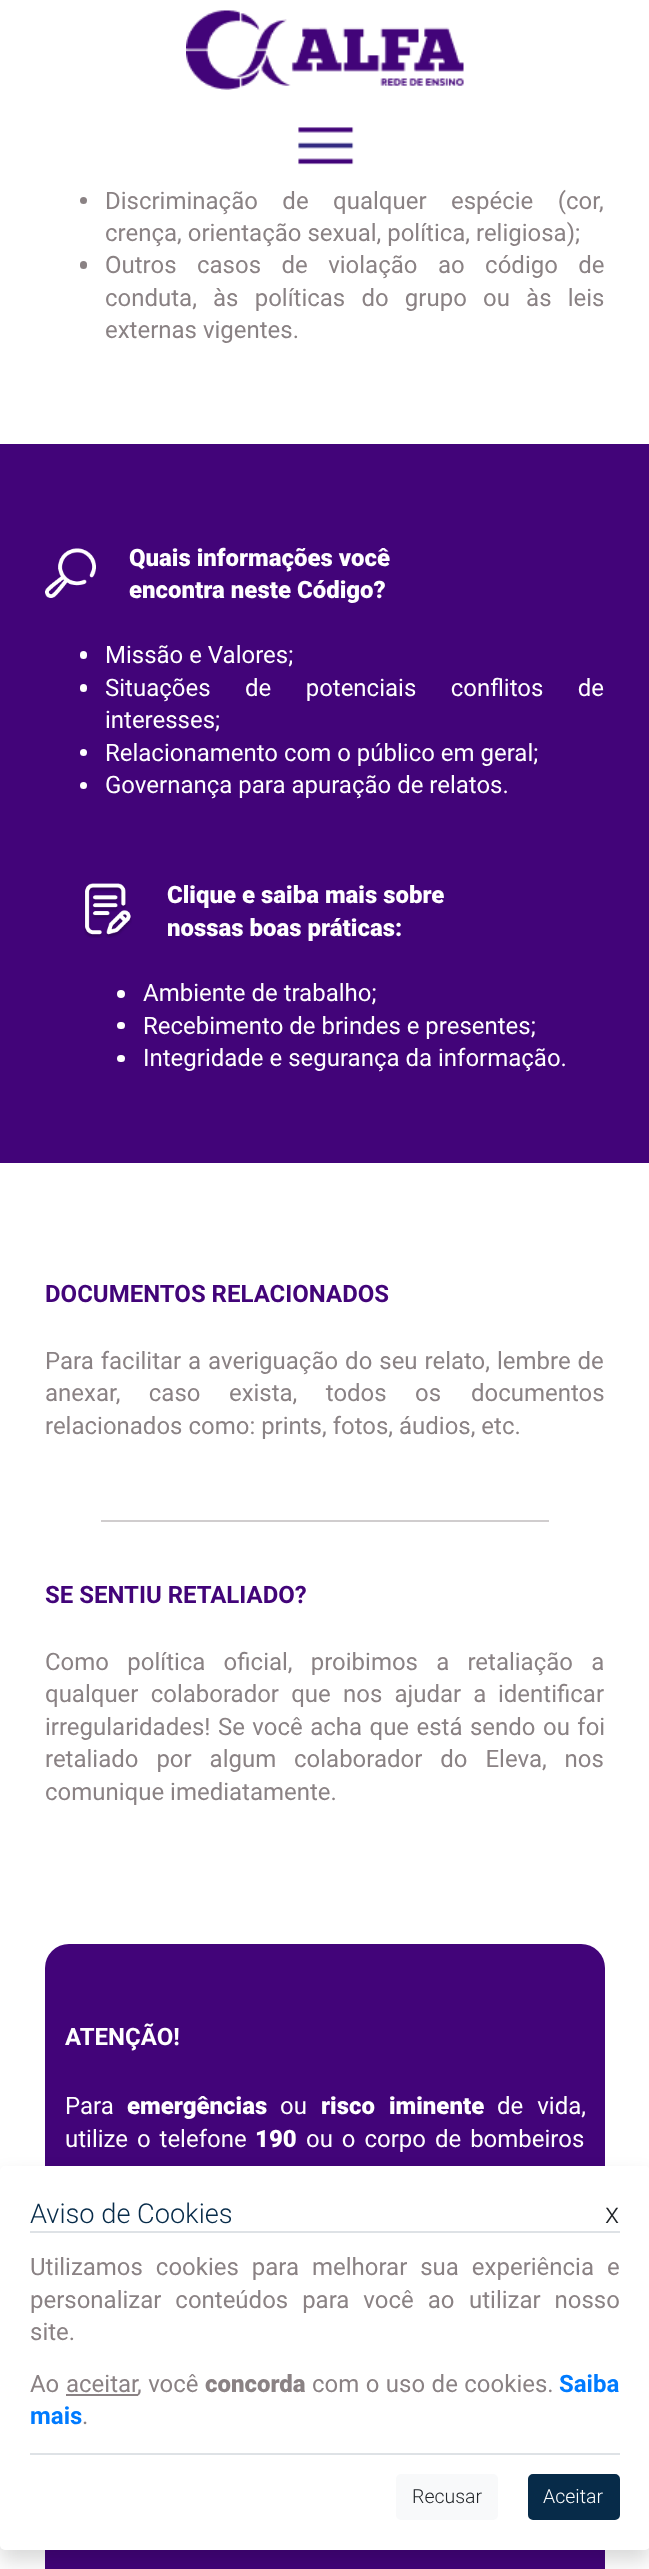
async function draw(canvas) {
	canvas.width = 649;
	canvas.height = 2569;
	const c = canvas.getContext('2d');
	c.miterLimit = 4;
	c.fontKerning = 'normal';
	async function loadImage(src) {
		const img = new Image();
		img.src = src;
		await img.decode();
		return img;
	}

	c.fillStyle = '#fff';
	c.fillRect(0, 0, 649, 2569);
	c.drawImage(await loadImage('img1.png'), 186, 10, 278, 80);
	c.drawImage(await loadImage('img2.png'), 298, 127, 56, 38);
	c.fillStyle = '#8a8284';
	c.beginPath();
	c.arc(83.5, 200.5, 3.5, 0, 2 * Math.PI);
	c.fill();
	c.wordSpacing = '18.5px';
	c.font = '24px Roboto';
	c.fillText('Discriminação de qualquer espécie (cor,', 105, 209);
	c.wordSpacing = '0px';
	c.fillText('crença, orientação sexual, política, religiosa);', 105, 241);
	c.beginPath();
	c.roundRect(80, 261, 7, 8, 3.5);
	c.fill();
	c.wordSpacing = '14.5px';
	c.fillText('Outros casos de violação ao código de', 105, 273);
	c.wordSpacing = '10.25px';
	c.fillText('conduta, às políticas do grupo ou às leis', 105, 306);
	c.wordSpacing = '0px';
	c.fillText('externas vigentes.', 105, 338);
	c.fillStyle = '#420479';
	c.fillRect(0, 444, 649, 719);
	c.drawImage(await loadImage('img3.png'), 45, 548, 51, 50);
	c.font = '900 24px Roboto';
	c.fillStyle = '#fff';
	c.fillText('Quais informações você', 129, 566);
	c.fillText('encontra neste Código?', 129, 598);
	c.beginPath();
	c.roundRect(80, 651, 7, 8, 3.5);
	c.fill();
	c.font = '24px Roboto';
	c.fillText('Missão e Valores;', 105, 663);
	c.beginPath();
	c.roundRect(80, 684, 7, 8, 3.5);
	c.fill();
	c.wordSpacing = '28.5px';
	c.fillText('Situações de potenciais conflitos de', 105, 696);
	c.wordSpacing = '0px';
	c.fillText('interesses;', 105, 728);
	c.beginPath();
	c.arc(83.5, 752.5, 3.5, 0, 2 * Math.PI);
	c.fill();
	c.fillText('Relacionamento com o público em geral;', 105, 761);
	c.beginPath();
	c.arc(83.5, 785.5, 3.5, 0, 2 * Math.PI);
	c.fill();
	c.fillText('Governança para apuração de relatos.', 105, 793);
	c.drawImage(await loadImage('img4.png'), 84, 883, 48, 55);
	c.font = '900 24px Roboto';
	c.fillText('Clique e saiba mais sobre', 167, 903);
	c.fillText('nossas boas práticas:', 167, 936);
	c.beginPath();
	c.arc(121, 994, 4, 0, 2 * Math.PI);
	c.fill();
	c.font = '24px Roboto';
	c.fillText('Ambiente de trabalho;', 143, 1001);
	c.beginPath();
	c.roundRect(117, 1022, 8, 7, 3.5);
	c.fill();
	c.fillText('Recebimento de brindes e presentes;', 143, 1034);
	c.beginPath();
	c.roundRect(117, 1055, 8, 7, 3.5);
	c.fill();
	c.fillText('Integridade e segurança da informação.', 143, 1066);
	c.font = 'bold 24px Roboto';
	c.fillStyle = '#420479';
	c.fillText('DOCUMENTOS RELACIONADOS', 45, 1302);
	c.wordSpacing = '1px';
	c.font = '24px Roboto';
	c.fillStyle = '#8a8284';
	c.fillText('Para facilitar a averiguação do seu relato, lembre de', 45, 1369);
	c.wordSpacing = '22.5px';
	c.fillText('anexar, caso exista, todos os', 45, 1401);
	c.wordSpacing = '0px';
	c.fillText('documentos', 471, 1401);
	c.fillText('relacionados como: prints, fotos, áudios, etc.', 45, 1434);
	c.fillStyle = '#d0cdce';
	c.fillRect(101, 1520, 448, 2);
	c.font = 'bold 24px Roboto';
	c.fillStyle = '#420479';
	c.fillText('SE SENTIU RETALIADO?', 45, 1603);
	c.wordSpacing = '12.25px';
	c.font = '24px Roboto';
	c.fillStyle = '#8a8284';
	c.fillText('Como política oficial, proibimos a retaliação a', 45, 1670);
	c.wordSpacing = '6.25px';
	c.fillText('qualquer colaborador que nos ajudar a', 45, 1702);
	c.wordSpacing = '0px';
	c.fillText('identificar', 498, 1702);
	c.wordSpacing = '1.5px';
	c.fillText('irregularidades! Se você acha que está sendo ou foi', 45, 1735);
	c.wordSpacing = '12px';
	c.fillText('retaliado por algum', 45, 1767);
	c.fillText('colaborador do Eleva, nos', 294, 1767);
	c.wordSpacing = '0px';
	c.fillText('comunique imediatamente.', 45, 1800);
	c.fillStyle = '#420479';
	c.beginPath();
	c.roundRect(45, 1944, 560, 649, 24);
	c.fill();
	c.font = 'bold 24px Roboto';
	c.fillStyle = '#fff';
	c.fillText('ATENÇÃO!', 65, 2045);
	c.font = '24px Roboto';
	c.fillText('Para', 65, 2114);
	c.font = '900 24px Roboto';
	c.fillText('emergências', 127, 2114);
	c.font = '24px Roboto';
	c.fillText('ou', 280, 2114);
	c.wordSpacing = '8px';
	c.font = '900 24px Roboto';
	c.fillText('risco iminente', 321, 2114);
	c.font = '24px Roboto';
	c.fillText('de vida,', 497, 2114);
	c.wordSpacing = '3px';
	c.fillText('utilize o telefone', 65, 2147);
	c.wordSpacing = '0px';
	c.font = '900 24px Roboto';
	c.fillText('190', 255, 2147);
	c.wordSpacing = '3px';
	c.font = '24px Roboto';
	c.fillText('ou o corpo de bombeiros', 306, 2147);
	c.fillStyle = '#00000026';
	c.filter = 'blur(10px)';
	c.beginPath();
	c.roundRect(0, 2177, 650, 384, 5);
	c.fill();
	c.filter = 'none';
	c.fillStyle = '#fff';
	c.beginPath();
	c.roundRect(0, 2166, 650, 384, 5);
	c.fill();
	c.fillStyle = '#dee2e6';
	c.fillRect(30, 2453, 590, 2);
	c.fillRect(30, 2231, 590, 2);
	c.wordSpacing = '0px';
	c.font = '300 27.25px Roboto';
	c.fillStyle = '#072b49';
	c.fillText('Aviso de Cookies', 30, 2223);
	c.font = '300 29px Roboto';
	c.fillStyle = '#212529';
	c.fillText('x', 605, 2223);
	c.wordSpacing = '7px';
	c.font = '24px Roboto';
	c.fillStyle = '#8a8284';
	c.fillText('Utilizamos cookies para melhorar sua experiência e', 30, 2275);
	c.wordSpacing = '8px';
	c.fillText('personalizar conteúdos para você ao', 30, 2308);
	c.fillText('utilizar nosso', 469, 2308);
	c.wordSpacing = '0px';
	for (const [text, x, y] of [
		['site.', 30, 2340],
		['Ao', 30, 2392],
		['aceitar', 66, 2392],
	]) {
		c.fillText(text, x, y);
	}
	c.fillRect(66, 2394, 72, 2);
	c.wordSpacing = '0.5px';
	c.fillText(', você', 137, 2392);
	c.wordSpacing = '0px';
	c.font = '900 24px Roboto';
	c.fillText('concorda', 205, 2392);
	c.wordSpacing = '0.5px';
	c.font = '24px Roboto';
	c.fillText('com o uso de cookies.', 312, 2392);
	c.wordSpacing = '0px';
	c.font = 'bold 24px Roboto';
	c.fillStyle = '#007bff';
	c.fillText('Saiba', 559, 2392);
	c.fillText('mais', 30, 2424);
	c.font = '24px Roboto';
	c.fillStyle = '#8a8284';
	c.fillText('.', 82, 2424);
	c.fillStyle = '#f8f9fa';
	c.beginPath();
	c.roundRect(396, 2474, 102, 46, 5);
	c.fill();
	c.font = '300 19.5px Roboto';
	c.fillStyle = '#212529';
	c.fillText('Recusar', 412, 2503);
	c.fillStyle = '#072b49';
	c.beginPath();
	c.roundRect(529, 2475, 90, 44, 4);
	c.fill();
	c.strokeStyle = '#072b49';
	c.lineWidth = 2;
	c.stroke();
	c.fillStyle = '#fff';
	c.fillText('Aceitar', 543, 2503);
}

draw(document.querySelector('canvas'));
